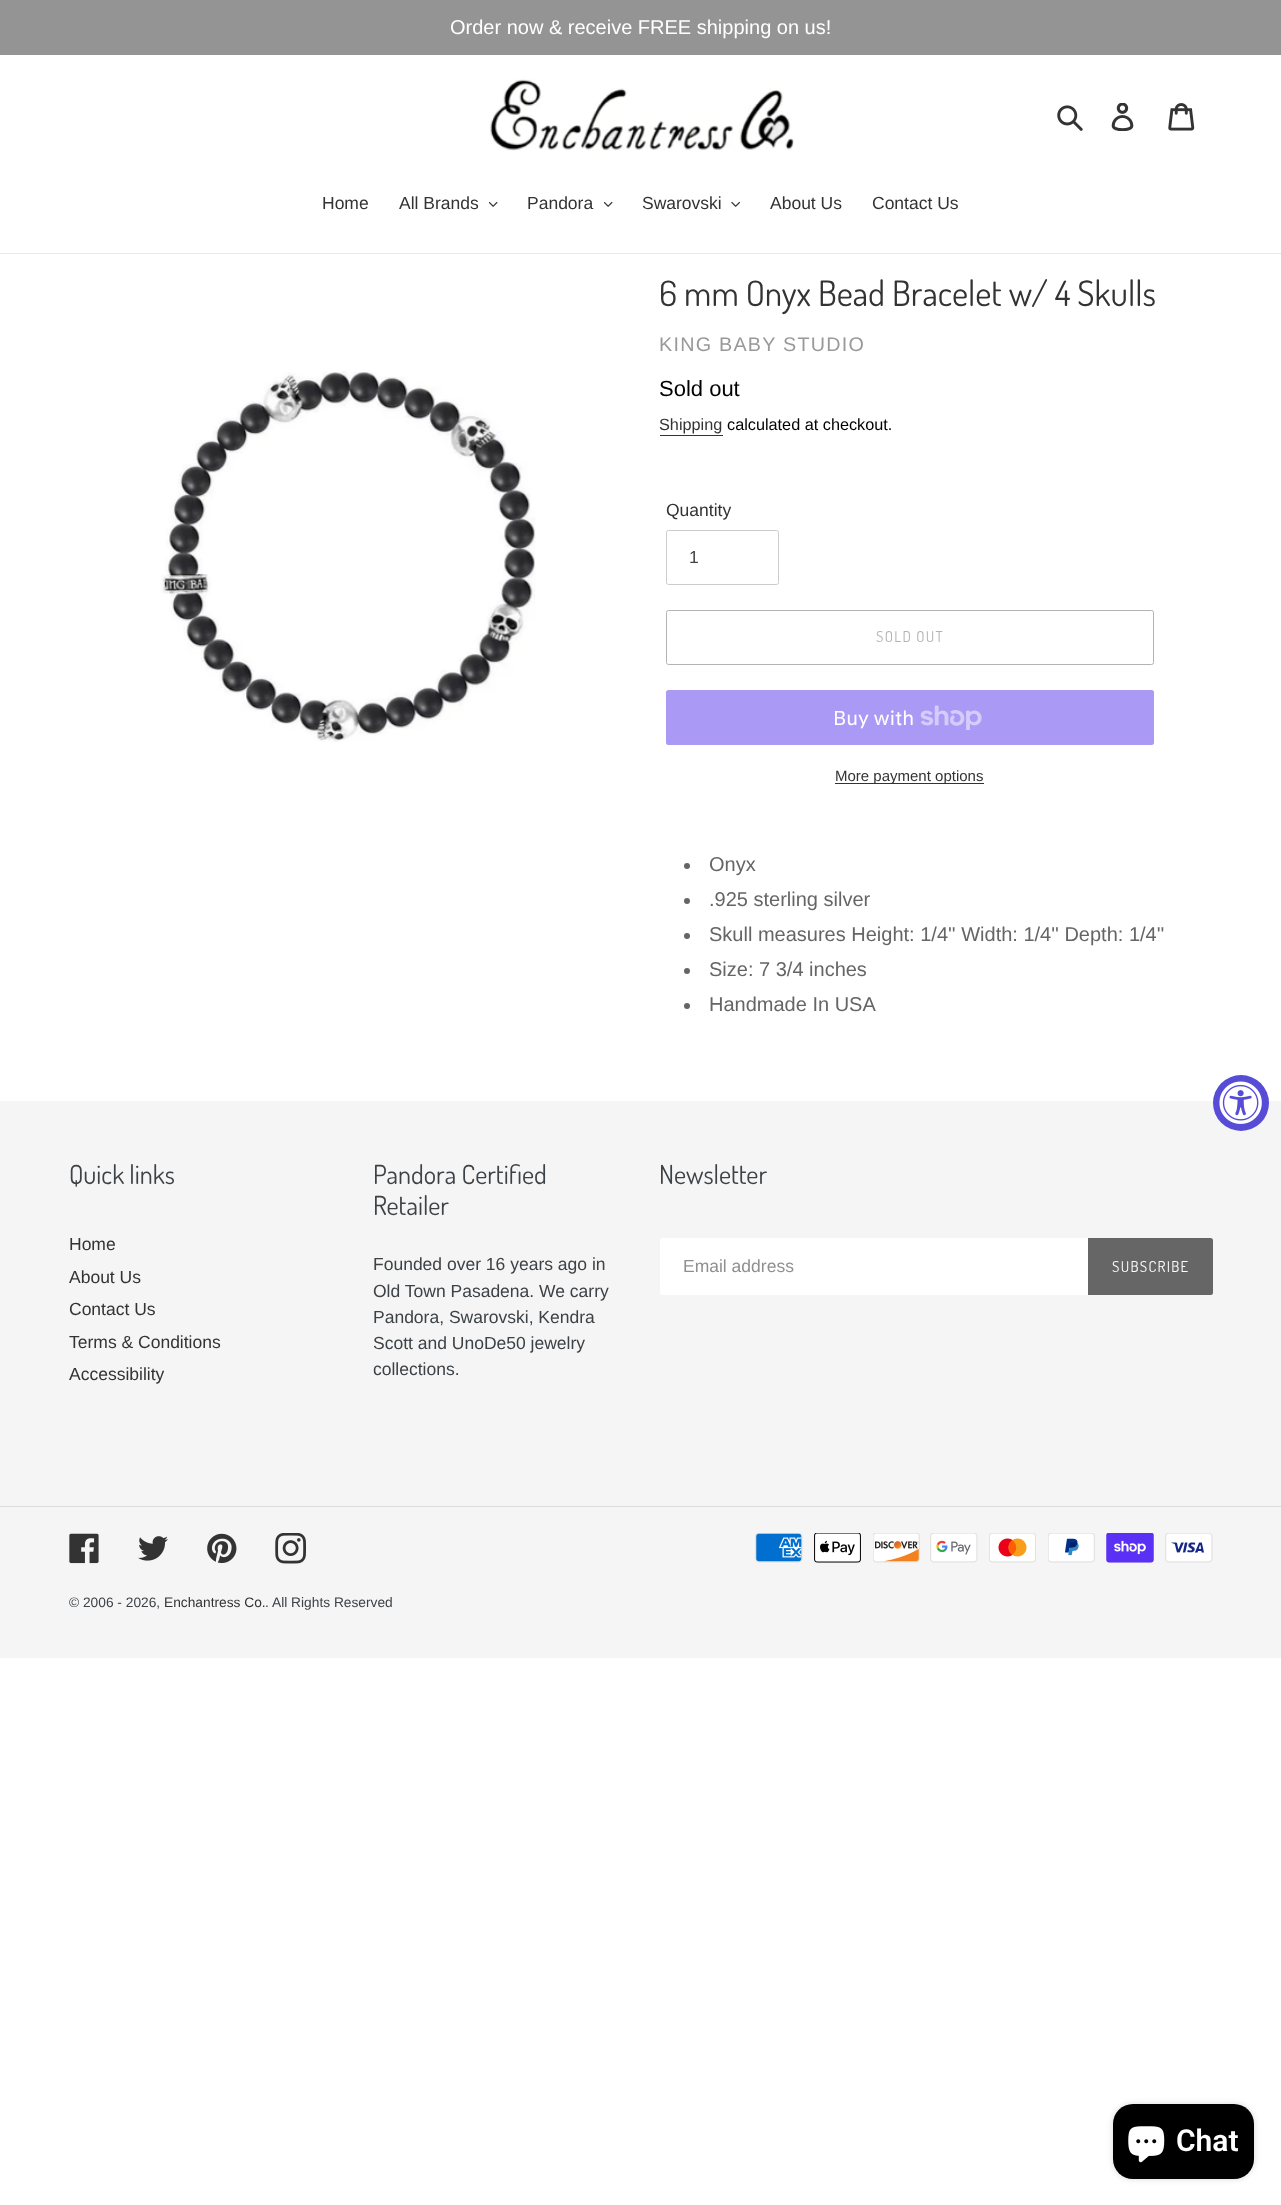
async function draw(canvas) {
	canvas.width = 1281;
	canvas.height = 2205;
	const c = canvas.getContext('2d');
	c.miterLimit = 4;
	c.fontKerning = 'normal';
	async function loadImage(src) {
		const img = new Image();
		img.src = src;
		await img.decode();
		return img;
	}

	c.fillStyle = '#fff';
	c.fillRect(0, 0, 1281, 2205);
	c.fillStyle = '#949494';
	c.fillRect(0, 0, 1281, 55);
	c.font = '20px Arimo';
	c.fillStyle = '#fff';
	c.fillText('Order now & receive FREE shipping on us!', 450, 34);
	c.drawImage(await loadImage('img1.png'), 489, 79, 305, 72);
	c.drawImage(await loadImage('img2.png'), 1057, 105, 26, 26);
	c.drawImage(await loadImage('img3.png'), 1111, 103, 23, 28);
	c.drawImage(await loadImage('img4.png'), 1168, 103, 27, 28);
	c.fillStyle = '#e8e9eb';
	c.fillRect(0, 253, 1281, 1);
	c.font = '17.5px Arimo';
	c.fillStyle = '#333';
	c.fillText('Home', 322, 209);
	c.fillText('All Brands', 399, 209);
	c.drawImage(await loadImage('img5.png'), 489, 201, 9, 6);
	c.fillText('Pandora', 527, 209);
	c.drawImage(await loadImage('img5.png'), 604, 201, 9, 6);
	c.fillText('Swarovski', 642, 209);
	c.drawImage(await loadImage('img6.png'), 731, 201, 9, 6);
	c.fillText('About Us', 770, 209);
	c.fillText('Contact Us', 872, 209);
	c.drawImage(await loadImage('img7.png'), 161, 371, 375, 371);
	c.font = '35px Dosis';
	c.fillText('6 mm Onyx Bead Bracelet w/ 4 Skulls', 659, 306);
	c.letterSpacing = '1.25px';
	c.font = '19.75px Arimo';
	c.fillStyle = '#999';
	c.fillText('KING BABY STUDIO', 659, 351);
	c.letterSpacing = '0px';
	c.font = '22px Arimo';
	c.fillStyle = '#000';
	c.fillText('Sold out', 659, 396);
	c.font = '16.25px Arimo';
	c.fillStyle = '#333';
	c.fillText('Shipping', 659, 430);
	c.fillRect(660, 435, 63, 1);
	c.fillStyle = '#000';
	c.fillText('calculated at checkout.', 727, 430);
	c.font = '17.5px Arimo';
	c.fillStyle = '#333';
	c.fillText('Quantity', 666, 516);
	c.beginPath();
	c.roundRect(666.5, 530.5, 112, 54, 2);
	c.strokeStyle = '#ccc';
	c.stroke();
	c.fillStyle = '#444';
	c.fillText('1', 689, 563);
	c.beginPath();
	c.roundRect(666.5, 610.5, 487, 54, 2);
	c.strokeStyle = '#b3b3b3';
	c.stroke();
	c.letterSpacing = '1.25px';
	c.font = '15px Dosis';
	c.fillStyle = '#b3b3b3';
	c.fillText('SOLD OUT', 876, 642);
	c.fillStyle = '#aa99f5';
	c.beginPath();
	c.roundRect(666, 690, 488, 55, 2.5);
	c.fill();
	c.letterSpacing = '0px';
	c.font = '20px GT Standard';
	c.fillStyle = '#fff';
	c.fillText('Buy with', 833, 725);
	c.drawImage(await loadImage('img8.png'), 920, 705, 62, 25);
	c.fillStyle = '#333';
	c.fillRect(835, 783, 149, 1);
	c.font = '15px Arimo';
	c.fillText('More payment options', 835, 781);
	c.fillStyle = '#666565';
	c.beginPath();
	c.arc(687, 866, 3, 0, 2 * Math.PI);
	c.fill();
	c.font = '20px Arimo';
	c.fillText('Onyx', 709, 871);
	c.beginPath();
	c.arc(687, 901, 3, 0, 2 * Math.PI);
	c.fill();
	c.fillText('.925 sterling silver', 709, 906);
	c.beginPath();
	c.arc(687, 936, 3, 0, 2 * Math.PI);
	c.fill();
	c.fillText('Skull measures Height: 1/4\'\' Width: 1/4\'\' Depth: 1/4\'\'', 709, 941);
	c.beginPath();
	c.arc(687, 971, 3, 0, 2 * Math.PI);
	c.fill();
	c.fillText('Size: 7 3/4 inches', 709, 976);
	c.beginPath();
	c.arc(687, 1006, 3, 0, 2 * Math.PI);
	c.fill();
	c.fillText('Handmade In USA', 709, 1011);
	c.fillStyle = '#f5f5f5';
	c.fillRect(0, 1101, 1281, 557);
	c.font = '26.25px Dosis';
	c.fillStyle = '#3d4246';
	c.fillText('Quick links', 69, 1184);
	c.font = '17.5px Arimo';
	c.fillStyle = '#333';
	for (const [text, x, y] of [
		['Home', 69, 1250],
		['About Us', 69, 1283],
		['Contact Us', 69, 1315],
		['Terms & Conditions', 69, 1348],
		['Accessibility', 69, 1380],
	]) {
		c.fillText(text, x, y);
	}
	c.font = '26.25px Dosis';
	c.fillStyle = '#3d4246';
	c.fillText('Pandora Certified', 373, 1184);
	c.fillText('Retailer', 373, 1215);
	c.font = '17.5px Arimo';
	for (const [text, x, y] of [
		['Founded over 16 years ago in', 373, 1270],
		['Old Town Pasadena. We carry', 373, 1297],
		['Pandora, Swarovski, Kendra', 373, 1323],
		['Scott and UnoDe50 jewelry', 373, 1349],
		['collections.', 373, 1375],
	]) {
		c.fillText(text, x, y);
	}
	c.font = '26.25px Dosis';
	c.fillText('Newsletter', 659, 1184);
	c.fillStyle = '#fff';
	c.beginPath();
	c.roundRect(660, 1238, 428, 57, [2.5, 0, 0, 2.5]);
	c.fill();
	c.font = '17.5px Arimo';
	c.fillStyle = '#8f8f8f';
	c.fillText('Email address', 683, 1272);
	c.fillStyle = '#666';
	c.beginPath();
	c.roundRect(1088, 1238, 125, 57, [0, 2.5, 2.5, 0]);
	c.fill();
	c.letterSpacing = '1.25px';
	c.font = '15px Dosis';
	c.fillStyle = '#fff';
	c.fillText('SUBSCRIBE', 1112, 1272);
	c.fillStyle = '#dcdcdc';
	c.fillRect(0, 1506, 1281, 1);
	c.drawImage(await loadImage('img9.png'), 69, 1533, 30, 31);
	c.drawImage(await loadImage('img10.png'), 138, 1536, 30, 25);
	c.drawImage(await loadImage('img11.png'), 207, 1533, 30, 30);
	c.drawImage(await loadImage('img12.png'), 275, 1533, 31, 31);
	c.drawImage(await loadImage('img13.png'), 755, 1533, 48, 30);
	c.drawImage(await loadImage('img14.png'), 814, 1533, 47, 30);
	c.drawImage(await loadImage('img15.png'), 873, 1533, 47, 30);
	c.drawImage(await loadImage('img16.png'), 930, 1533, 48, 30);
	c.drawImage(await loadImage('img17.png'), 989, 1533, 47, 30);
	c.drawImage(await loadImage('img18.png'), 1048, 1533, 47, 30);
	c.drawImage(await loadImage('img19.png'), 1106, 1533, 48, 30);
	c.drawImage(await loadImage('img20.png'), 1165, 1533, 48, 30);
	c.letterSpacing = '0px';
	c.font = '13.75px Arimo';
	c.fillStyle = '#3d4246';
	c.fillText('© 2006 - 2026,', 69, 1607);
	c.fillStyle = '#333';
	c.fillText('Enchantress Co.', 164, 1607);
	c.fillStyle = '#3d4246';
	c.fillText('.', 265, 1607);
	c.fillText('All Rights Reserved', 272, 1607);
	c.fillStyle = '#574cd5';
	c.beginPath();
	c.arc(1241, 1103, 28, 0, 2 * Math.PI);
	c.fill();
	c.drawImage(await loadImage('img21.png'), 1219, 1081, 43, 43);
	c.fillStyle = '#00000026';
	c.filter = 'blur(3px)';
	c.beginPath();
	c.roundRect(1113, 2104, 141, 75, 20);
	c.fill();
	c.filter = 'none';
	c.fillStyle = '#000';
	c.beginPath();
	c.roundRect(1113, 2104, 141, 75, 20);
	c.fill();
	c.drawImage(await loadImage('img22.png'), 1128, 2126, 37, 37);
	c.font = '600 30px Roboto';
	c.fillStyle = '#fff';
	c.fillText('Chat', 1176, 2151);
}

draw(document.querySelector('canvas'));
